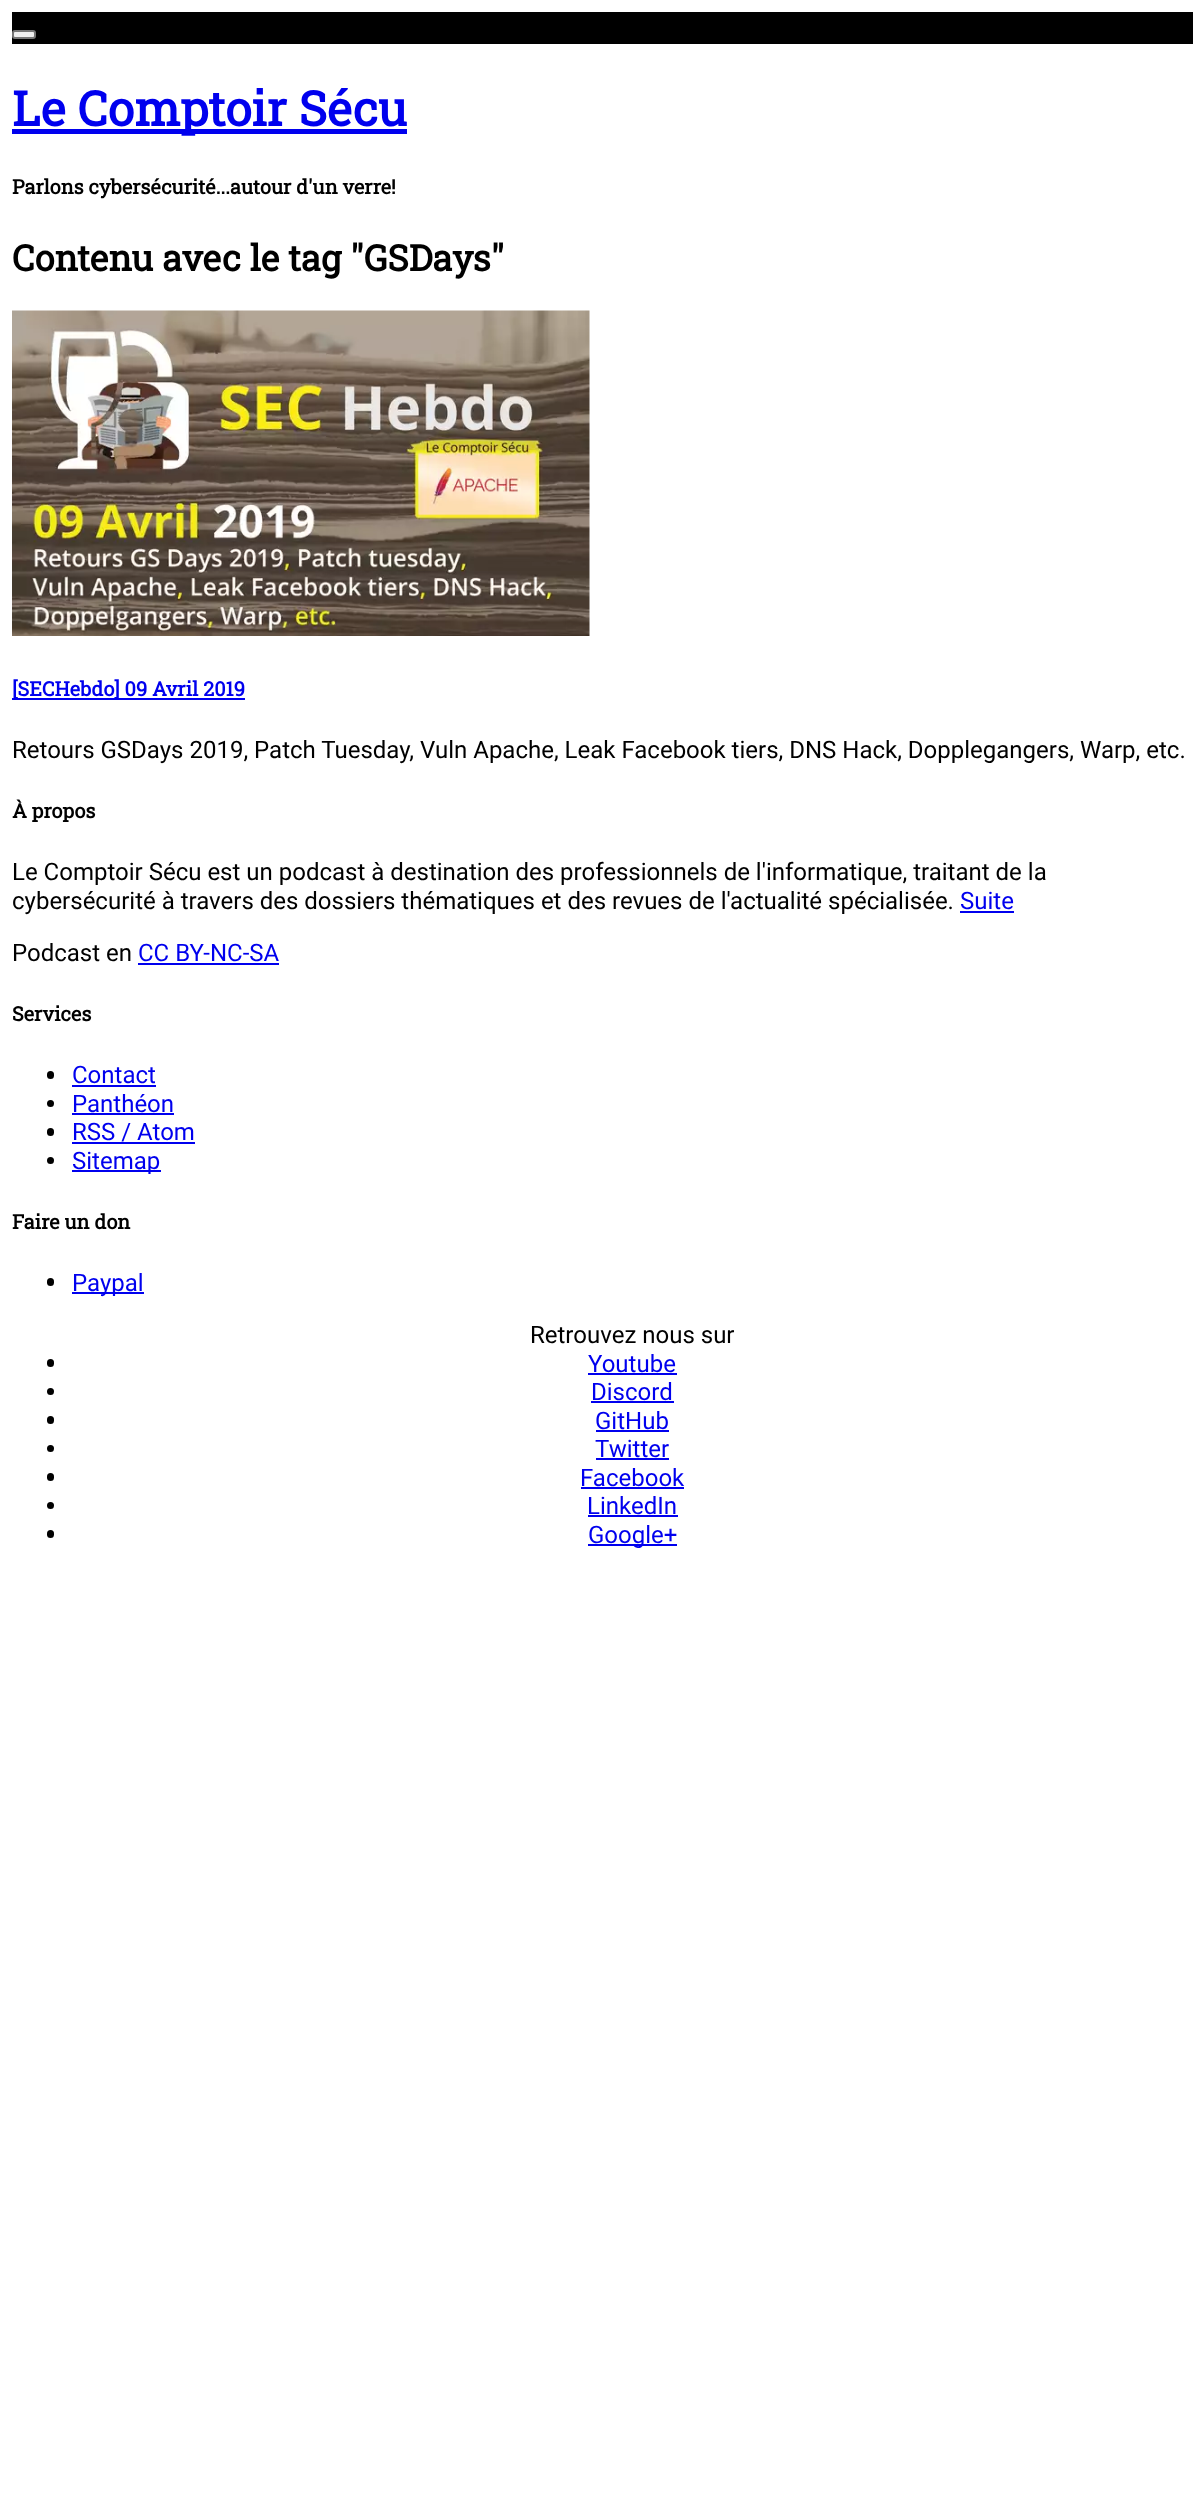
async function draw(canvas) {
	canvas.width = 1204;
	canvas.height = 2499;
	const c = canvas.getContext('2d');
	c.miterLimit = 4;
	c.fontKerning = 'normal';
	async function loadImage(src) {
		const img = new Image();
		img.src = src;
		await img.decode();
		return img;
	}

	c.fillStyle = '#fff';
	c.fillRect(0, 0, 1204, 2499);
	c.fillStyle = '#000';
	c.fillRect(12, 12, 1181, 32);
	c.fillStyle = '#efefef';
	c.beginPath();
	c.roundRect(13, 31, 22, 7, 2);
	c.fill();
	c.strokeStyle = '#767676';
	c.lineWidth = 2;
	c.stroke();
	c.fillStyle = '#00e';
	c.fillRect(12, 129, 395, 5);
	c.font = 'bold 48px Roboto Slab';
	c.fillText('Le Comptoir Sécu', 12, 126);
	c.font = 'bold 19.9px Roboto Slab';
	c.fillStyle = '#000';
	c.fillText('Parlons cybersécurité...autour d\'un verre!', 12, 194);
	c.font = 'bold 36px Roboto Slab';
	c.fillText('Contenu avec le tag "GSDays"', 12, 271);
	c.drawImage(await loadImage('img1.png'), 12, 310, 578, 326);
	c.fillStyle = '#00e';
	c.fillRect(12, 698, 233, 2);
	c.font = 'bold 19.9px Roboto Slab';
	c.fillText('[SECHebdo] 09 Avril 2019', 12, 696);
	c.font = '24px Roboto';
	c.fillStyle = '#000';
	c.fillText('Retours GSDays 2019, Patch Tuesday, Vuln Apache, Leak Facebook tiers, DNS Hack, Dopplegangers, Warp, etc.', 12, 758);
	c.font = 'bold 19.9px Roboto Slab';
	c.fillText('À propos', 12, 818);
	c.font = '24px Roboto';
	c.fillText('Le Comptoir Sécu est un podcast à destination des professionnels de l\'informatique, traitant de la', 12, 880);
	c.fillText('cybersécurité à travers des dossiers thématiques et des revues de l\'actualité spécialisée.', 12, 909);
	c.fillStyle = '#00e';
	c.fillText('Suite', 960, 909);
	c.fillRect(960, 911, 54, 2);
	c.fillStyle = '#000';
	c.fillText('Podcast en', 12, 961);
	c.fillStyle = '#00e';
	c.fillText('CC BY-NC-SA', 138, 961);
	c.fillRect(138, 963, 141, 2);
	c.font = 'bold 19.9px Roboto Slab';
	c.fillStyle = '#000';
	c.fillText('Services', 12, 1021);
	c.beginPath();
	c.roundRect(47, 1071, 7, 8, 3.5);
	c.fill();
	c.font = '24px Roboto';
	c.fillStyle = '#00e';
	c.fillText('Contact', 72, 1083);
	c.fillRect(72, 1085, 84, 2);
	c.fillStyle = '#000';
	c.beginPath();
	c.arc(50.5, 1103.5, 3.5, 0, 2 * Math.PI);
	c.fill();
	c.fillStyle = '#00e';
	c.fillText('Panthéon', 72, 1112);
	c.fillRect(72, 1113, 102, 2);
	c.fillStyle = '#000';
	c.beginPath();
	c.roundRect(47, 1128, 7, 8, 3.5);
	c.fill();
	c.fillStyle = '#00e';
	c.fillText('RSS / Atom', 72, 1140);
	c.fillRect(72, 1142, 123, 2);
	c.fillStyle = '#000';
	c.beginPath();
	c.arc(50.5, 1160.5, 3.5, 0, 2 * Math.PI);
	c.fill();
	c.fillStyle = '#00e';
	c.fillRect(72, 1170, 89, 2);
	c.fillText('Sitemap', 72, 1169);
	c.font = 'bold 19.9px Roboto Slab';
	c.fillStyle = '#000';
	c.fillText('Faire un don', 12, 1229);
	c.beginPath();
	c.roundRect(47, 1278, 7, 8, 3.5);
	c.fill();
	c.fillStyle = '#00e';
	c.fillRect(72, 1292, 72, 2);
	c.font = '24px Roboto';
	c.fillText('Paypal', 72, 1291);
	c.fillStyle = '#000';
	c.fillText('Retrouvez nous sur', 530, 1343);
	c.beginPath();
	c.roundRect(47, 1359, 7, 8, 3.5);
	c.fill();
	c.fillStyle = '#00e';
	c.fillText('Youtube', 588, 1372);
	c.fillRect(588, 1373, 89, 2);
	c.fillStyle = '#000';
	c.beginPath();
	c.arc(50.5, 1391.5, 3.5, 0, 2 * Math.PI);
	c.fill();
	c.fillStyle = '#00e';
	c.fillText('Discord', 591, 1400);
	c.fillRect(591, 1401, 83, 2);
	c.fillStyle = '#000';
	c.beginPath();
	c.roundRect(47, 1416, 7, 8, 3.5);
	c.fill();
	c.fillStyle = '#00e';
	c.fillText('GitHub', 595, 1429);
	c.fillRect(596, 1430, 73, 2);
	c.fillStyle = '#000';
	c.beginPath();
	c.arc(50.5, 1448.5, 3.5, 0, 2 * Math.PI);
	c.fill();
	c.fillStyle = '#00e';
	c.fillText('Twitter', 595, 1457);
	c.fillRect(596, 1458, 73, 2);
	c.fillStyle = '#000';
	c.beginPath();
	c.roundRect(47, 1473, 7, 8, 3.5);
	c.fill();
	c.fillStyle = '#00e';
	c.fillText('Facebook', 580, 1486);
	c.fillRect(581, 1487, 103, 2);
	c.fillStyle = '#000';
	c.beginPath();
	c.arc(50.5, 1505.5, 3.5, 0, 2 * Math.PI);
	c.fill();
	c.fillStyle = '#00e';
	c.fillText('LinkedIn', 587, 1514);
	c.fillRect(588, 1515, 90, 2);
	c.fillStyle = '#000';
	c.beginPath();
	c.roundRect(47, 1530, 7, 8, 3.5);
	c.fill();
	c.fillStyle = '#00e';
	c.fillRect(588, 1544, 89, 2);
	c.fillText('Google+', 588, 1543);
}

draw(document.querySelector('canvas'));
